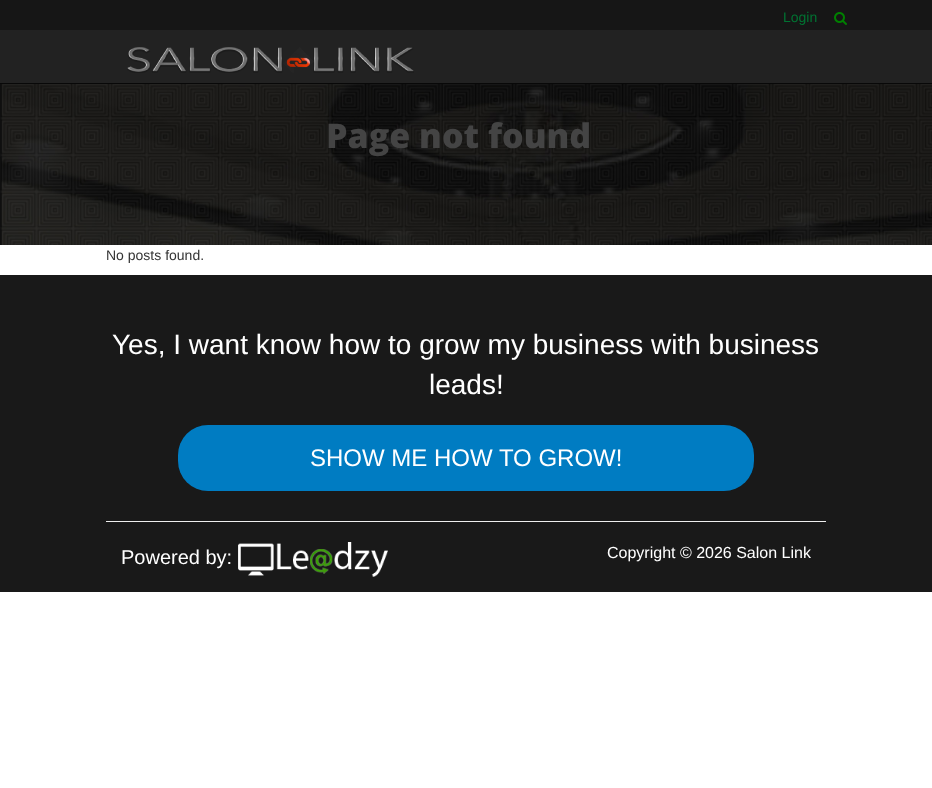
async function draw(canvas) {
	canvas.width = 932;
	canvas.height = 788;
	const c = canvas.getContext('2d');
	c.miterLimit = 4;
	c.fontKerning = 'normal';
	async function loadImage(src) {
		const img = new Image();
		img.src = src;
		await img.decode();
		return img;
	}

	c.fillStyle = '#fff';
	c.fillRect(0, 0, 932, 788);
	for (const [x, y, w, h, color] of [
		[0, 30, 932, 53, '#222'],
		[0, 83, 932, 1, '#080808'],
		[0, 0, 932, 30, '#161616'],
	]) {
		c.fillStyle = color;
		c.fillRect(x, y, w, h);
	}
	c.font = '14px Liberation Sans';
	c.fillStyle = '#007332';
	c.fillText('Login', 783, 22);
	c.drawImage(await loadImage('img1.png'), 834, 12, 13, 13);
	c.drawImage(await loadImage('img2.png'), 127, 47, 287, 26);
	c.drawImage(await loadImage('img3.png'), 0, 84, 932, 161);
	c.font = '800 34px Open Sans';
	c.fillStyle = '#444';
	c.fillText('Page not found', 326, 148);
	c.font = '14px Liberation Sans';
	c.fillStyle = '#333';
	c.fillText('No posts found.', 106, 260);
	c.fillStyle = '#191919';
	c.fillRect(0, 275, 932, 317);
	c.font = '28px Liberation Sans';
	c.fillStyle = '#fff';
	c.fillText('Yes, I want know how to grow my business with business', 112, 354);
	c.fillText('leads!', 429, 394);
	c.fillStyle = '#007cc2';
	c.beginPath();
	c.roundRect(178, 425, 576, 66, 30);
	c.fill();
	c.font = '24px Liberation Sans';
	c.fillStyle = '#fff';
	c.fillText('SHOW ME HOW TO GROW!', 310, 466);
	c.fillStyle = '#eee';
	c.fillRect(106, 521, 720, 1);
	c.font = '20px Liberation Sans';
	c.fillStyle = '#fff';
	c.fillText('Powered by:', 121, 564);
	c.drawImage(await loadImage('img4.png'), 238, 542, 150, 35);
	c.font = '16px Liberation Sans';
	c.fillText('Copyright © 2026 Salon Link', 607, 558);
}

draw(document.querySelector('canvas'));
